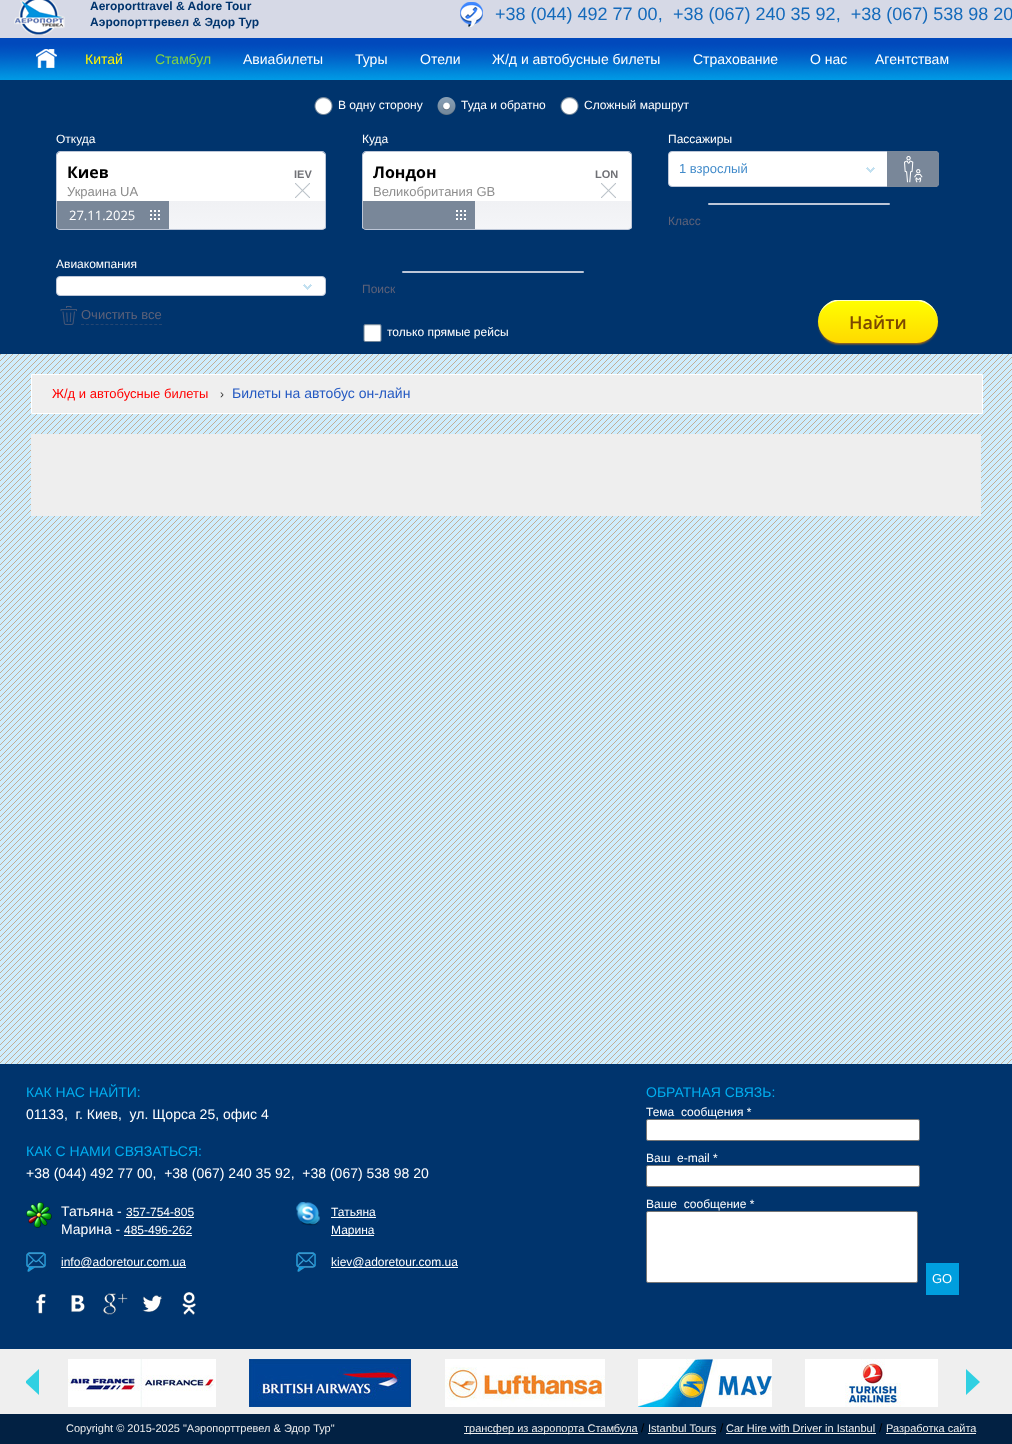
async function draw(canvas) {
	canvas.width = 1012;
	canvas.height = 1444;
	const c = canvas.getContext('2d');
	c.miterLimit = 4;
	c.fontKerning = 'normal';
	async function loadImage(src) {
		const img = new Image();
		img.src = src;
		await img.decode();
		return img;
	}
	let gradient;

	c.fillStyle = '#fff';
	c.fillRect(0, 0, 1012, 1444);
	c.drawImage(await loadImage('img1.png'), 0, 354, 1012, 710);
	c.fillStyle = '#d6d9e6';
	c.fillRect(0, 0, 1012, 38);
	c.drawImage(await loadImage('img2.png'), 14, 0, 51, 35);
	c.font = 'bold 12px Liberation Sans';
	c.fillStyle = '#00346d';
	c.fillText('Aeroporttravel & Adore Tour', 90, 10);
	c.fillText('Аэропорттревел & Эдор Тур', 90, 26);
	c.drawImage(await loadImage('img3.png'), 460, 2, 23, 25);
	c.font = '18px Liberation Sans';
	c.fillStyle = '#146abb';
	c.fillText('+38 (044) 492 77 00,', 495, 20);
	c.fillText('+38 (067) 240 35 92,  +38 (067) 538 98 20', 673, 20);
	c.drawImage(await loadImage('img4.png'), 0, 38, 1012, 42);
	c.drawImage(await loadImage('img5.png'), 36, 49, 21, 19);
	c.font = '14px Liberation Sans';
	c.fillStyle = '#fff300';
	c.fillText('Китай', 85, 64);
	c.fillStyle = '#83d440';
	c.fillText('Стамбул', 155, 64);
	c.fillStyle = '#fff';
	for (const [text, x, y] of [
		['Авиабилеты', 243, 64],
		['Туры', 355, 64],
		['Отели', 420, 64],
		['Ж/д и автобусные билеты', 492, 64],
		['Страхование', 693, 64],
		['О нас', 810, 64],
		['Агентствам', 875, 64],
	]) {
		c.fillText(text, x, y);
	}
	c.fillStyle = '#00346d';
	c.fillRect(0, 80, 1012, 274);
	c.drawImage(await loadImage('img6.png'), 314, 97, 19, 18);
	c.font = '12px Liberation Sans';
	c.fillStyle = '#fff';
	c.fillText('В одну сторону', 338, 109);
	c.drawImage(await loadImage('img7.png'), 437, 97, 19, 18);
	c.fillText('Туда и обратно', 461, 109);
	c.drawImage(await loadImage('img6.png'), 560, 97, 19, 18);
	c.fillText('Сложный маршрут', 584, 109);
	c.fillText('Откуда', 56, 143);
	c.beginPath();
	c.roundRect(57, 152, 268, 49, [3, 3, 0, 0]);
	c.fill();
	c.fillStyle = '#bdc6d7';
	c.beginPath();
	c.moveTo(60, 151);
	c.lineTo(322, 151);
	c.bezierCurveTo(324, 151, 326, 153, 326, 155);
	c.lineTo(326, 201);
	c.lineTo(56, 201);
	c.lineTo(56, 155);
	c.bezierCurveTo(56, 153, 58, 151, 60, 151);
	c.closePath();
	c.moveTo(60, 152);
	c.lineTo(322, 152);
	c.bezierCurveTo(324, 152, 325, 153, 325, 155);
	c.lineTo(325, 201);
	c.lineTo(57, 201);
	c.lineTo(57, 155);
	c.bezierCurveTo(57, 153, 58, 152, 60, 152);
	c.closePath();
	c.fill('evenodd');
	c.fillStyle = '#fff';
	c.fillRect(324, 154, 1, 1);
	c.font = 'bold 16px Open Sans';
	c.fillStyle = '#000';
	c.fillText('Киев', 67, 178);
	c.font = 'bold 11px Liberation Sans';
	c.fillStyle = '#707176';
	c.fillText('IEV', 294, 178);
	c.font = '13px Liberation Sans';
	c.fillStyle = '#8d8d8d';
	c.fillText('Украина UA', 67, 196);
	c.drawImage(await loadImage('img8.png'), 295, 183, 15, 15);
	c.save();
	c.beginPath();
	c.roundRect(56, 201, 270, 29, [0, 0, 4, 4]);
	c.clip();
	gradient = c.createLinearGradient(191, 201, 191, 229);
	gradient.addColorStop(0, '#f0f1f4');
	gradient.addColorStop(1, '#f4f5f8');
	c.fillStyle = gradient;
	c.fillRect(56, 201, 270, 28);
	c.restore();
	c.fillStyle = '#bdc6d7';
	c.beginPath();
	c.moveTo(56, 201);
	c.lineTo(326, 201);
	c.lineTo(326, 226);
	c.bezierCurveTo(326, 228, 324, 230, 322, 230);
	c.lineTo(60, 230);
	c.bezierCurveTo(58, 230, 56, 228, 56, 226);
	c.closePath();
	c.moveTo(57, 201);
	c.lineTo(325, 201);
	c.lineTo(325, 226);
	c.bezierCurveTo(325, 228, 324, 229, 322, 229);
	c.lineTo(60, 229);
	c.bezierCurveTo(58, 229, 57, 228, 57, 226);
	c.closePath();
	c.fill('evenodd');
	c.fillStyle = '#798799';
	c.beginPath();
	c.roundRect(57, 201, 84, 28, [0, 0, 0, 2]);
	c.fill();
	c.font = '13px Open Sans';
	c.fillStyle = '#fff';
	c.fillText('27.11.2025', 69, 220);
	c.fillStyle = '#798799';
	c.fillRect(141, 201, 28, 28);
	c.drawImage(await loadImage('img9.png'), 150, 210, 10, 10);
	c.font = '12px Liberation Sans';
	c.fillStyle = '#fff';
	c.fillText('Куда', 362, 143);
	c.beginPath();
	c.roundRect(363, 152, 268, 49, [3, 3, 0, 0]);
	c.fill();
	c.fillStyle = '#bdc6d7';
	c.beginPath();
	c.moveTo(366, 151);
	c.lineTo(628, 151);
	c.bezierCurveTo(630, 151, 632, 153, 632, 155);
	c.lineTo(632, 201);
	c.lineTo(362, 201);
	c.lineTo(362, 155);
	c.bezierCurveTo(362, 153, 364, 151, 366, 151);
	c.closePath();
	c.moveTo(366, 152);
	c.lineTo(628, 152);
	c.bezierCurveTo(630, 152, 631, 153, 631, 155);
	c.lineTo(631, 201);
	c.lineTo(363, 201);
	c.lineTo(363, 155);
	c.bezierCurveTo(363, 153, 364, 152, 366, 152);
	c.closePath();
	c.fill('evenodd');
	c.fillStyle = '#fff';
	c.fillRect(630, 154, 1, 1);
	c.font = 'bold 16px Open Sans';
	c.fillStyle = '#000';
	c.fillText('Лондон', 373, 178);
	c.font = 'bold 11px Liberation Sans';
	c.fillStyle = '#707176';
	c.fillText('LON', 595, 178);
	c.font = '13px Liberation Sans';
	c.fillStyle = '#8d8d8d';
	c.fillText('Великобритания GB', 373, 196);
	c.drawImage(await loadImage('img8.png'), 601, 183, 15, 15);
	c.save();
	c.beginPath();
	c.roundRect(362, 201, 270, 29, [0, 0, 4, 4]);
	c.clip();
	gradient = c.createLinearGradient(497, 201, 497, 229);
	gradient.addColorStop(0, '#f0f1f4');
	gradient.addColorStop(1, '#f4f5f8');
	c.fillStyle = gradient;
	c.fillRect(362, 201, 270, 28);
	c.restore();
	c.fillStyle = '#bdc6d7';
	c.beginPath();
	c.moveTo(362, 201);
	c.lineTo(632, 201);
	c.lineTo(632, 226);
	c.bezierCurveTo(632, 228, 630, 230, 628, 230);
	c.lineTo(366, 230);
	c.bezierCurveTo(364, 230, 362, 228, 362, 226);
	c.closePath();
	c.moveTo(363, 201);
	c.lineTo(631, 201);
	c.lineTo(631, 226);
	c.bezierCurveTo(631, 228, 630, 229, 628, 229);
	c.lineTo(366, 229);
	c.bezierCurveTo(364, 229, 363, 228, 363, 226);
	c.closePath();
	c.fill('evenodd');
	c.fillStyle = '#798799';
	c.beginPath();
	c.roundRect(363, 201, 84, 28, [0, 0, 0, 2]);
	c.fill();
	c.fillRect(447, 201, 28, 28);
	c.drawImage(await loadImage('img9.png'), 456, 210, 10, 10);
	c.font = '12px Liberation Sans';
	c.fillStyle = '#fff';
	c.fillText('Пассажиры', 668, 143);
	c.beginPath();
	c.roundRect(668.5, 151.5, 270, 35, 3.5);
	c.fill();
	c.strokeStyle = '#bdc6d7';
	c.stroke();
	c.font = '13px Liberation Sans';
	c.fillStyle = '#428bca';
	c.fillText('1 взрослый', 679, 173);
	c.drawImage(await loadImage('img10.png'), 866, 167, 9, 6);
	c.fillStyle = '#798799';
	c.beginPath();
	c.roundRect(887, 151, 52, 36, [0, 4, 4, 0]);
	c.fill();
	c.drawImage(await loadImage('img11.png'), 904, 156, 19, 27);
	c.beginPath();
	c.roundRect(887.5, 151.5, 51, 35, [0, 3.5, 3.5, 0]);
	c.strokeStyle = '#798799';
	c.stroke();
	c.fillStyle = '#bdc6d7';
	c.beginPath();
	c.roundRect(708, 203, 182, 2, 1);
	c.fill();
	c.font = '12px Liberation Sans';
	c.fillStyle = '#5e6278';
	c.fillText('Класс', 668, 225);
	c.fillStyle = '#fff';
	c.fillText('Авиакомпания', 56, 268);
	c.beginPath();
	c.roundRect(56.5, 276.5, 269, 19, 3.5);
	c.fill();
	c.strokeStyle = '#bdc6d7';
	c.stroke();
	c.drawImage(await loadImage('img10.png'), 303, 284, 9, 6);
	c.beginPath();
	c.moveTo(81, 324.5);
	c.lineTo(162, 324.5);
	c.strokeStyle = '#264671';
	c.setLineDash([3, 1.88]);
	c.stroke();
	c.drawImage(await loadImage('img12.png'), 60, 306, 17, 19);
	c.font = '13px Liberation Sans';
	c.fillStyle = '#5e6278';
	c.fillText('Очистить все', 81, 319);
	c.fillStyle = '#bdc6d7';
	c.beginPath();
	c.roundRect(402, 271, 182, 2, 1);
	c.fill();
	c.font = '12px Liberation Sans';
	c.fillStyle = '#5e6278';
	c.fillText('Поиск', 362, 293);
	c.drawImage(await loadImage('img13.png'), 363, 324, 19, 18);
	c.fillStyle = '#fff';
	c.fillText('только прямые рейсы', 387, 336);
	c.fillStyle = '#ca7700';
	c.filter = 'blur(1px)';
	c.beginPath();
	c.roundRect(819, 303, 118, 41, 20.5);
	c.fill();
	c.filter = 'none';
	gradient = c.createLinearGradient(878, 300, 878, 343);
	gradient.addColorStop(0, '#ff0');
	gradient.addColorStop(1, '#ffd900');
	c.fillStyle = gradient;
	c.beginPath();
	c.roundRect(818, 300, 120, 43, 21.5);
	c.fill();
	c.fillStyle = '#ffc';
	c.beginPath();
	c.moveTo(840, 301);
	c.lineTo(916, 301);
	c.bezierCurveTo(928, 301, 938, 311, 938, 322);
	c.bezierCurveTo(938, 312, 931, 302, 921, 300);
	c.lineTo(904, 300);
	c.lineTo(835, 300);
	c.bezierCurveTo(825, 302, 818, 312, 818, 322);
	c.bezierCurveTo(818, 311, 828, 301, 840, 301);
	c.closePath();
	c.fill();
	c.font = '600 18px Open Sans';
	c.fillStyle = '#7c4900';
	c.fillText('Найти', 849, 329);
	c.fillStyle = '#efefef';
	c.beginPath();
	c.rect(31.5, 374.5, 951, 39);
	c.fill();
	c.strokeStyle = '#fff';
	c.setLineDash([]);
	c.stroke();
	c.font = '13px Liberation Sans';
	c.fillStyle = '#f00';
	c.fillText('Ж/д и автобусные билеты', 52, 398);
	c.font = '12px Liberation Sans';
	c.fillStyle = '#333';
	c.fillText('›', 220, 398);
	c.font = '14px Liberation Sans';
	c.fillStyle = '#2459c2';
	c.fillText('Билеты на автобус он-лайн', 232, 398);
	c.fillStyle = '#eee';
	c.fillRect(31, 434, 950, 82);
	c.fillStyle = '#00346d';
	c.fillRect(0, 1064, 1012, 285);
	c.fillStyle = '#00aeef';
	c.fillText('КАК НАС НАЙТИ:', 26, 1097);
	c.fillStyle = '#fff';
	c.fillText('01133,  г. Киев,  ул. Щорса 25, офис 4', 26, 1119);
	c.fillStyle = '#00aeef';
	c.fillText('КАК С НАМИ СВЯЗАТЬСЯ:', 26, 1156);
	c.fillStyle = '#fff';
	c.fillText('+38 (044) 492 77 00,  +38 (067) 240 35 92,  +38 (067) 538 98 20', 26, 1178);
	c.drawImage(await loadImage('img14.png'), 26, 1202, 26, 26);
	c.fillText('Татьяна -', 61, 1216);
	c.font = '12px Liberation Sans';
	c.fillText('357-754-805', 126, 1216);
	c.fillRect(126, 1217, 68, 1);
	c.font = '14px Liberation Sans';
	c.fillText('Марина -', 61, 1234);
	c.font = '12px Liberation Sans';
	c.fillText('485-496-262', 124, 1234);
	c.fillRect(124, 1235, 68, 1);
	c.drawImage(await loadImage('img15.png'), 296, 1202, 24, 24);
	c.fillText('Татьяна', 331, 1216);
	c.fillRect(331, 1217, 45, 1);
	c.fillRect(331, 1235, 43, 1);
	c.fillText('Марина', 331, 1234);
	c.drawImage(await loadImage('img16.png'), 26, 1252, 20, 20);
	c.fillRect(61, 1267, 125, 1);
	c.fillText('info@adoretour.com.ua', 61, 1266);
	c.drawImage(await loadImage('img16.png'), 296, 1252, 20, 20);
	c.fillRect(331, 1267, 127, 1);
	c.fillText('kiev@adoretour.com.ua', 331, 1266);
	c.drawImage(await loadImage('img17.png'), 36, 1294, 10, 20);
	c.drawImage(await loadImage('img18.png'), 71, 1295, 14, 17);
	c.drawImage(await loadImage('img19.png'), 103, 1293, 25, 22);
	c.drawImage(await loadImage('img20.png'), 142, 1295, 21, 17);
	c.drawImage(await loadImage('img21.png'), 182, 1292, 14, 23);
	c.font = '14px Liberation Sans';
	c.fillStyle = '#00aeef';
	c.fillText('ОБРАТНАЯ СВЯЗЬ:', 646, 1097);
	c.font = '12px Liberation Sans';
	c.fillStyle = '#fff';
	c.fillText('Тема  сообщения *', 646, 1116);
	c.beginPath();
	c.roundRect(646.5, 1119.5, 273, 21, 1.5);
	c.fill();
	c.strokeStyle = '#767676';
	c.stroke();
	c.fillText('Ваш  e-mail *', 646, 1162);
	c.beginPath();
	c.roundRect(646.5, 1165.5, 273, 21, 1.5);
	c.fill();
	c.stroke();
	c.fillText('Ваше  сообщение *', 646, 1208);
	c.beginPath();
	c.roundRect(646.5, 1211.5, 271, 71, 1.5);
	c.fill();
	c.stroke();
	c.fillStyle = '#009ede';
	c.fillRect(926, 1263, 33, 32);
	c.font = '13px Liberation Sans';
	c.fillStyle = '#fff';
	c.fillText('GO', 932, 1283);
	c.fillStyle = '#efefef';
	c.fillRect(0, 1349, 1012, 65);
	c.drawImage(await loadImage('img22.png'), 26, 1369, 13, 26);
	c.drawImage(await loadImage('img23.png'), 68, 1359, 148, 48);
	c.drawImage(await loadImage('img24.png'), 249, 1359, 162, 48);
	c.drawImage(await loadImage('img25.png'), 445, 1359, 160, 48);
	c.drawImage(await loadImage('img26.png'), 638, 1359, 134, 48);
	c.drawImage(await loadImage('img27.png'), 805, 1359, 133, 48);
	c.drawImage(await loadImage('img28.png'), 966, 1369, 14, 26);
	c.fillStyle = '#022143';
	c.fillRect(0, 1414, 1012, 30);
	c.font = '11px Liberation Sans';
	c.fillStyle = '#eee';
	c.fillText('Copyright © 2015-2025 "Аэропорттревел & Эдор Тур"', 66, 1432);
	c.fillStyle = '#efefef';
	c.fillRect(464, 1433, 174, 1);
	c.fillStyle = '#eee';
	c.fillText('трансфер из аэропорта Стамбула', 464, 1432);
	c.font = '12px Liberation Sans';
	c.fillStyle = '#000';
	c.fillText('/', 641, 1432);
	c.font = '11px Liberation Sans';
	c.fillStyle = '#eee';
	c.fillText('Istanbul Tours', 648, 1432);
	c.fillStyle = '#efefef';
	c.fillRect(648, 1433, 68, 1);
	c.font = '12px Liberation Sans';
	c.fillStyle = '#000';
	c.fillText('/', 720, 1432);
	c.font = '11px Liberation Sans';
	c.fillStyle = '#eee';
	c.fillText('Car Hire with Driver in Istanbul', 726, 1432);
	c.fillStyle = '#efefef';
	c.fillRect(726, 1433, 150, 1);
	c.font = '12px Liberation Sans';
	c.fillStyle = '#000';
	c.fillText('/', 879, 1432);
	c.fillStyle = '#efefef';
	c.fillRect(886, 1433, 90, 1);
	c.font = '11px Liberation Sans';
	c.fillStyle = '#eee';
	c.fillText('Разработка сайта', 886, 1432);
}

draw(document.querySelector('canvas'));
